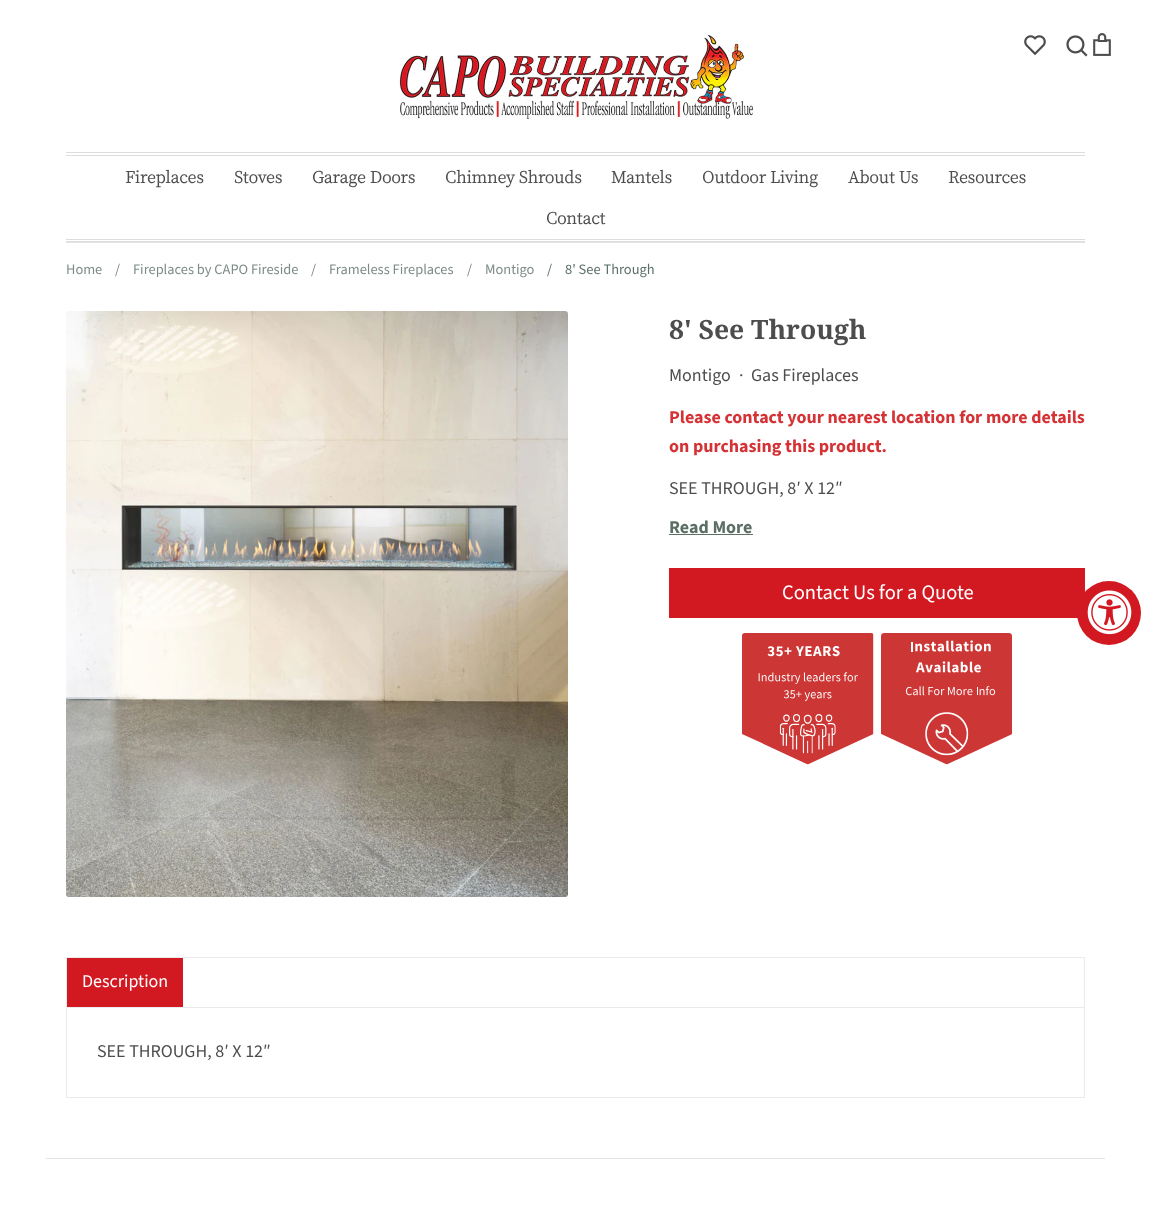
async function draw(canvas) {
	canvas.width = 1151;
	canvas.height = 1225;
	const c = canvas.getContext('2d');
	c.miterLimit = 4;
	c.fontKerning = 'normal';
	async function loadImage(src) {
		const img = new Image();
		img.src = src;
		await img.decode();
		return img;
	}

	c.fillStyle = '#fff';
	c.fillRect(0, 0, 1151, 1225);
	c.drawImage(await loadImage('img1.png'), 398, 34, 356, 85);
	c.drawImage(await loadImage('img2.png'), 1024, 35, 22, 21);
	c.drawImage(await loadImage('img3.png'), 1066, 35, 22, 22);
	c.drawImage(await loadImage('img4.png'), 1093, 33, 18, 23);
	for (const [x, y, w, h, color] of [
		[66, 242, 1019, 1, '#e4e4e4'],
		[66, 152, 1019, 1, '#ddd'],
		[66, 241, 1019, 1, '#ddd'],
		[66, 155, 1019, 1, '#ddd'],
	]) {
		c.fillStyle = color;
		c.fillRect(x, y, w, h);
	}
	c.font = 'bold 16px Noto Serif TC';
	c.fillStyle = '#4d4d4d';
	for (const [text, x, y] of [
		['Fireplaces', 125, 183],
		['Stoves', 234, 183],
		['Garage Doors', 312, 183],
		['Chimney Shrouds', 445, 183],
		['Mantels', 611, 183],
		['Outdoor Living', 702, 183],
		['About Us', 848, 183],
		['Resources', 948, 183],
		['Contact', 546, 224],
	]) {
		c.fillText(text, x, y);
	}
	c.fillStyle = '#ddd';
	c.fillRect(66, 239, 1019, 1);
	c.font = '14.4px Source Sans Pro';
	c.fillStyle = '#7d8c85';
	for (const [text, x, y] of [
		['Home', 66, 274],
		['/', 115, 274],
		['Fireplaces by CAPO Fireside', 133, 274],
		['/', 311, 274],
		['Frameless Fireplaces', 329, 274],
		['/', 467, 274],
		['Montigo', 485, 274],
	]) {
		c.fillText(text, x, y);
	}
	c.fillStyle = '#5c6f66';
	c.fillText('/', 547, 274);
	c.fillText('8\' See Through', 565, 274);
	c.drawImage(await loadImage('img5.png'), 66, 311, 502, 586);
	c.font = 'bold 26.5px Noto Serif';
	c.fillStyle = '#4d4d4d';
	c.fillText('8\' See Through', 669, 339);
	c.font = '18px Source Sans Pro';
	for (const [text, x, y] of [
		['Montigo', 669, 381],
		['·', 739, 381],
		['Gas Fireplaces', 751, 381],
	]) {
		c.fillText(text, x, y);
	}
	c.font = 'bold 18px Source Sans Pro';
	c.fillStyle = '#d43235';
	c.fillText('Please contact your nearest location for more details', 669, 423);
	c.fillText('on purchasing this product.', 669, 452);
	c.font = '18px Source Sans Pro';
	c.fillStyle = '#4d4d4d';
	c.fillText('SEE THROUGH, 8′ X 12″', 669, 494);
	c.font = 'bold 18px Source Sans Pro';
	c.fillStyle = '#5c6f66';
	c.fillText('Read More', 669, 533);
	c.fillRect(669, 534, 84, 1);
	c.fillStyle = '#d21921';
	c.fillRect(669, 568, 416, 50);
	c.font = '20.5px Source Sans Pro';
	c.fillStyle = '#fff';
	c.fillText('Contact Us for a Quote', 782, 599);
	c.drawImage(await loadImage('img6.png'), 742, 633, 132, 132);
	c.drawImage(await loadImage('img7.png'), 881, 633, 131, 132);
	c.strokeStyle = '#ebebeb';
	c.strokeRect(66.5, 957.5, 1018, 140);
	c.fillStyle = '#ebebeb';
	c.fillRect(67, 1007, 1017, 1);
	c.fillStyle = '#d21921';
	c.fillRect(67, 958, 116, 49);
	c.font = '18px Source Sans Pro';
	c.fillStyle = '#fff';
	c.fillText('Description', 82, 987);
	c.fillStyle = '#4d4d4d';
	c.fillText('SEE THROUGH, 8′ X 12″', 97, 1057);
	c.fillStyle = '#d21921';
	c.beginPath();
	c.arc(1109, 613, 32, 0, 2 * Math.PI);
	c.fill();
	c.drawImage(await loadImage('img8.png'), 1087, 590, 45, 45);
	c.fillStyle = '#e4e4e4';
	c.fillRect(46, 1158, 1059, 1);
}

draw(document.querySelector('canvas'));
